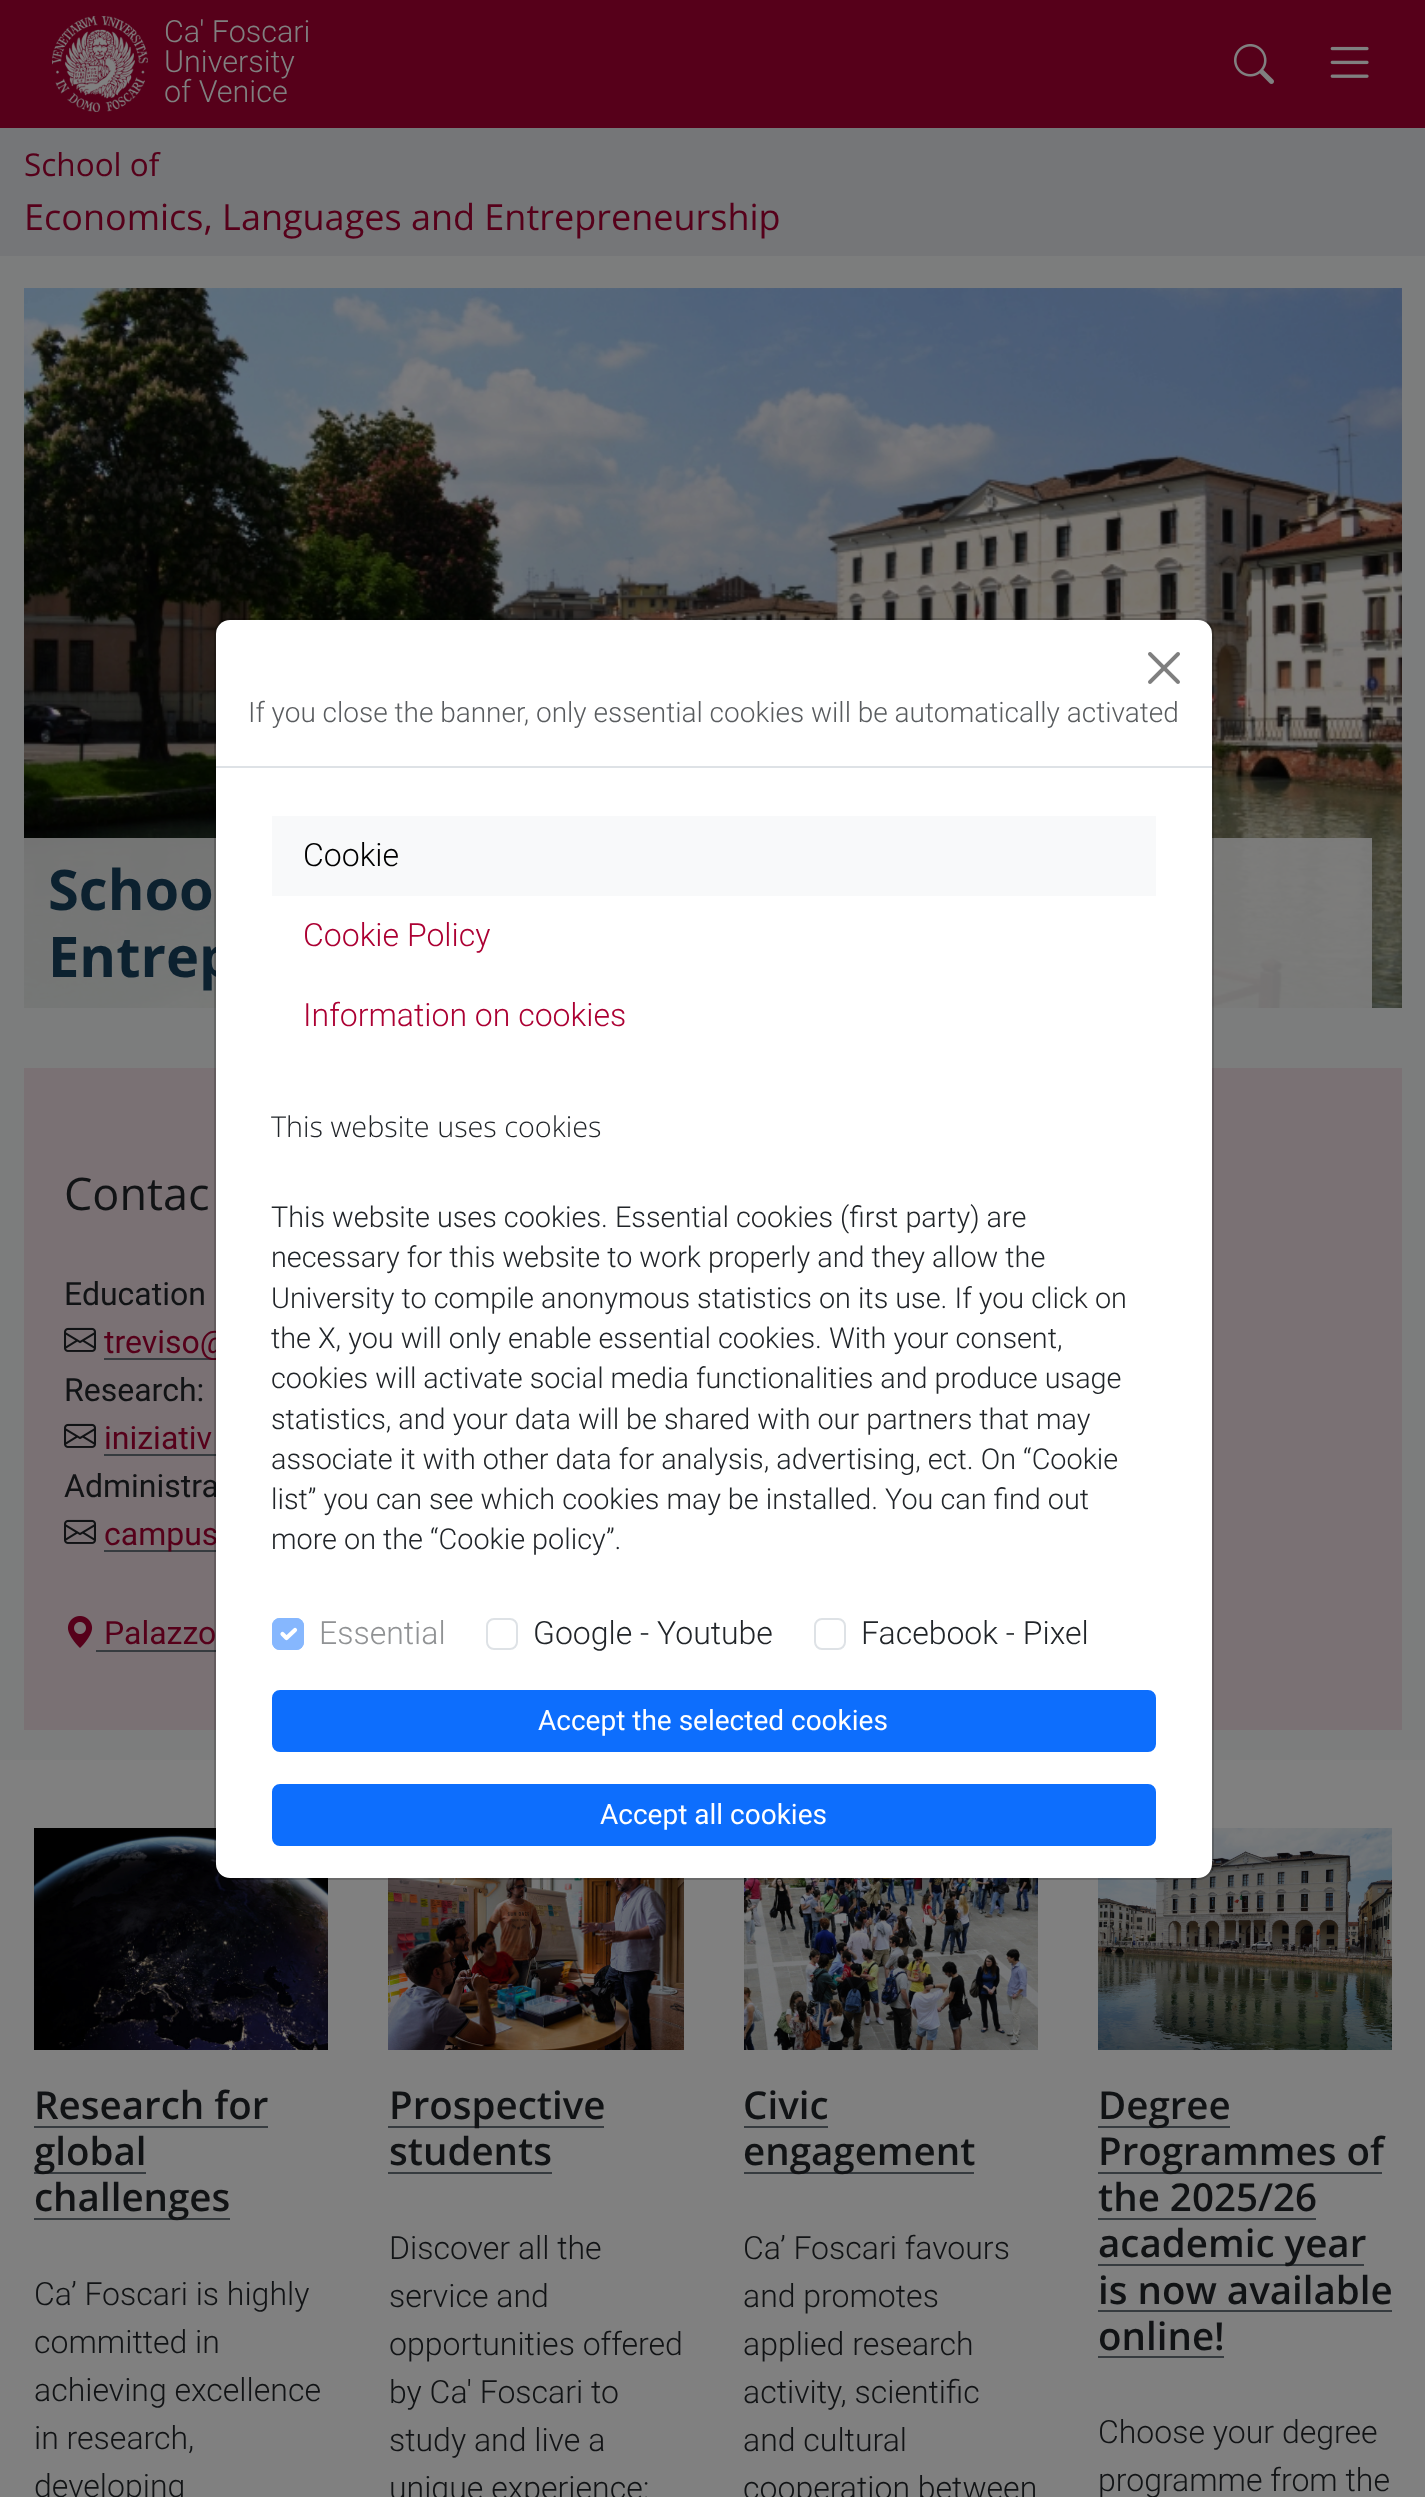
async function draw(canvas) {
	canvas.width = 1425;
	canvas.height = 2497;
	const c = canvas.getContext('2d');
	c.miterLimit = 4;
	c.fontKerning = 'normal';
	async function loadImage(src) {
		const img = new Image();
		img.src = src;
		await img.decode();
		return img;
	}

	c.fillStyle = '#808080';
	c.fillRect(0, 0, 1425, 2497);
	c.fillStyle = '#56001a';
	c.fillRect(0, 0, 1425, 128);
	c.drawImage(await loadImage('img1.png'), 52, 16, 96, 96);
	c.font = '300 30.5px Roboto';
	c.fillStyle = '#808080';
	for (const [text, x, y] of [
		['Ca\' Foscari', 164, 42],
		['University', 164, 72],
		['of Venice', 164, 102],
	]) {
		c.fillText(text, x, y);
	}
	c.drawImage(await loadImage('img2.png'), 1234, 44, 40, 40);
	c.drawImage(await loadImage('img3.png'), 1330, 46, 39, 32);
	c.fillStyle = '#757678';
	c.fillRect(0, 128, 1425, 128);
	c.font = '31.5px Open Sans';
	c.fillStyle = '#56001a';
	c.fillText('School of', 24, 176);
	c.font = '36px Open Sans';
	c.fillText('Economics, Languages and Entrepreneurship', 24, 230);
	c.fillStyle = '#7c7d7d';
	c.fillRect(0, 256, 1425, 1504);
	c.drawImage(await loadImage('img4.png'), 24, 288, 1378, 720);
	c.fillStyle = '#808080e6';
	c.fillRect(24, 838, 1348, 170);
	c.font = 'bold 56px Open Sans';
	c.fillStyle = '#0c212f';
	c.fillText('Schoo', 48, 910);
	c.fillText('Entrep', 48, 977);
	c.fillStyle = '#7a7174';
	c.fillRect(24, 1068, 1378, 662);
	c.font = '45px Open Sans';
	c.fillStyle = '#111315';
	c.fillText('Contac', 64, 1210);
	c.font = '32px Roboto';
	c.fillText('Education', 64, 1305);
	c.drawImage(await loadImage('img5.png'), 64, 1327, 32, 25);
	c.fillStyle = '#363b3f';
	c.fillRect(104, 1358, 112, 2);
	c.fillStyle = '#56001a';
	c.fillText('treviso@', 104, 1353);
	c.fillStyle = '#111315';
	c.fillText('Research:', 64, 1401);
	c.drawImage(await loadImage('img5.png'), 64, 1423, 32, 25);
	c.fillStyle = '#56001a';
	c.fillText('iniziativ', 104, 1449);
	c.fillStyle = '#363b3f';
	c.fillRect(104, 1454, 112, 2);
	c.fillStyle = '#111315';
	c.fillText('Administra', 64, 1497);
	c.drawImage(await loadImage('img5.png'), 64, 1519, 32, 25);
	c.fillStyle = '#363b3f';
	c.fillRect(104, 1550, 112, 2);
	c.fillStyle = '#56001a';
	c.fillText('campus', 104, 1545);
	c.drawImage(await loadImage('img6.png'), 67, 1616, 26, 32);
	c.fillText('Palazzo', 104, 1644);
	c.fillStyle = '#363b3f';
	c.fillRect(96, 1650, 120, 2);
	c.drawImage(await loadImage('img7.png'), 34, 1828, 294, 222);
	c.font = '600 38.5px Open Sans';
	c.fillStyle = '#111315';
	c.fillText('Research for', 34, 2119);
	c.fillStyle = '#363b3f';
	c.fillRect(34, 2126, 234, 2);
	c.fillRect(34, 2172, 112, 2);
	c.fillStyle = '#111315';
	c.fillText('global', 34, 2165);
	c.fillStyle = '#363b3f';
	c.fillRect(34, 2218, 196, 2);
	c.fillStyle = '#111315';
	c.fillText('challenges', 34, 2211);
	c.font = '300 32px Roboto';
	for (const [text, x, y] of [
		['Ca’ Foscari is highly', 34, 2305],
		['committed in', 34, 2353],
		['achieving excellence', 34, 2401],
		['in research,', 34, 2449],
		['developing', 34, 2497],
	]) {
		c.fillText(text, x, y);
	}
	c.drawImage(await loadImage('img8.png'), 388, 1878, 296, 172);
	c.fillStyle = '#363b3f';
	c.fillRect(388, 2126, 216, 2);
	c.font = '600 38.5px Open Sans';
	c.fillStyle = '#111315';
	c.fillText('Prospective', 389, 2119);
	c.fillText('students', 389, 2165);
	c.fillStyle = '#363b3f';
	c.fillRect(388, 2172, 164, 2);
	c.font = '300 32px Roboto';
	c.fillStyle = '#111315';
	for (const [text, x, y] of [
		['Discover all the', 389, 2259],
		['service and', 389, 2307],
		['opportunities offered', 389, 2355],
		['by Ca\' Foscari to', 389, 2403],
		['study and live a', 389, 2451],
		['unique experience:', 389, 2499],
	]) {
		c.fillText(text, x, y);
	}
	c.drawImage(await loadImage('img9.png'), 744, 1878, 294, 172);
	c.font = '600 38.5px Open Sans';
	c.fillText('Civic', 743, 2119);
	c.fillStyle = '#363b3f';
	c.fillRect(744, 2126, 84, 2);
	c.fillRect(744, 2172, 230, 2);
	c.fillStyle = '#111315';
	c.fillText('engagement', 743, 2165);
	c.font = '300 32px Roboto';
	for (const [text, x, y] of [
		['Ca’ Foscari favours', 743, 2259],
		['and promotes', 743, 2307],
		['applied research', 743, 2355],
		['activity, scientific', 743, 2403],
		['and cultural', 743, 2451],
		['cooperation between', 743, 2499],
	]) {
		c.fillText(text, x, y);
	}
	c.drawImage(await loadImage('img10.png'), 1098, 1828, 294, 222);
	c.fillStyle = '#363b3f';
	c.fillRect(1098, 2126, 132, 2);
	c.font = '600 38.5px Open Sans';
	c.fillStyle = '#111315';
	c.fillText('Degree', 1098, 2119);
	c.fillStyle = '#363b3f';
	c.fillRect(1098, 2172, 284, 2);
	c.fillStyle = '#111315';
	c.fillText('Programmes of', 1098, 2165);
	c.fillText('the 2025/26', 1098, 2211);
	c.fillStyle = '#363b3f';
	c.fillRect(1098, 2218, 218, 2);
	c.fillRect(1098, 2264, 266, 2);
	c.fillStyle = '#111315';
	c.fillText('academic year', 1098, 2257);
	c.fillText('is now available', 1098, 2304);
	c.fillStyle = '#363b3f';
	c.fillRect(1098, 2310, 294, 2);
	c.fillStyle = '#111315';
	c.fillText('online!', 1098, 2350);
	c.fillStyle = '#363b3f';
	c.fillRect(1098, 2356, 126, 2);
	c.font = '300 32px Roboto';
	c.fillStyle = '#111315';
	c.fillText('Choose your degree', 1098, 2443);
	c.fillText('programme from the', 1098, 2491);
	c.fillStyle = '#fff';
	c.beginPath();
	c.roundRect(216, 620, 996, 1258, 14);
	c.fill();
	c.beginPath();
	c.roundRect(215, 619, 998, 1260, 15);
	c.strokeStyle = '#0000002e';
	c.lineWidth = 2;
	c.stroke();
	c.fillStyle = '#dee2e6';
	c.fillRect(216, 766, 996, 2);
	c.drawImage(await loadImage('img11.png'), 1148, 652, 32, 32);
	c.font = '300 28px Roboto';
	c.fillStyle = '#595c5f';
	c.fillText('If you close the banner, only essential cookies will be automatically activated', 248, 722);
	c.fillStyle = '#f8f9fa';
	c.fillRect(272, 816, 884, 80);
	c.font = '300 32px Roboto';
	c.fillStyle = '#000';
	c.fillText('Cookie', 303, 866);
	c.fillStyle = '#ac0033';
	c.fillText('Cookie Policy', 303, 946);
	c.fillText('Information on cookies', 303, 1026);
	c.font = '300 28.8px Open Sans';
	c.fillStyle = '#212529';
	c.fillText('This website uses cookies', 271, 1137);
	c.font = '300 28.8px Roboto';
	for (const [text, x, y] of [
		['This website uses cookies. Essential cookies (first party) are', 271, 1227],
		['necessary for this website to work properly and they allow the', 271, 1267],
		['University to compile anonymous statistics on its use. If you click on', 271, 1308],
		['the X, you will only enable essential cookies. With your consent,', 271, 1348],
		['cookies will activate social media functionalities and produce usage', 271, 1388],
		['statistics, and your data will be shared with our partners that may', 271, 1429],
		['associate it with other data for analysis, advertising, ect. On “Cookie', 271, 1469],
		['list” you can see which cookies may be installed. You can find out', 271, 1509],
		['more on the “Cookie policy”.', 271, 1549],
	]) {
		c.fillText(text, x, y);
	}
	c.fillStyle = '#86b7fe';
	c.beginPath();
	c.roundRect(272, 1618, 32, 32, 8);
	c.fill();
	c.beginPath();
	c.moveTo(282.5, 1634);
	c.lineTo(286.5, 1638);
	c.lineTo(295, 1630);
	c.strokeStyle = '#fff';
	c.lineWidth = 4.2;
	c.lineCap = 'round';
	c.lineJoin = 'round';
	c.stroke();
	c.beginPath();
	c.roundRect(273, 1619, 30, 30, 7);
	c.strokeStyle = '#86b7fe';
	c.lineWidth = 2;
	c.lineJoin = 'miter';
	c.stroke();
	c.font = '300 32px Roboto';
	c.fillStyle = '#909294';
	c.fillText('Essential', 319, 1644);
	c.beginPath();
	c.roundRect(487, 1619, 30, 30, 7);
	c.strokeStyle = '#dee2e6';
	c.stroke();
	c.fillStyle = '#212529';
	c.fillText('Google - Youtube', 533, 1644);
	c.beginPath();
	c.roundRect(815, 1619, 30, 30, 7);
	c.stroke();
	c.fillText('Facebook - Pixel', 861, 1644);
	c.fillStyle = '#0d6efd';
	c.beginPath();
	c.roundRect(273, 1691, 882, 60, 7);
	c.fill();
	c.strokeStyle = '#0d6efd';
	c.stroke();
	c.font = '28px Roboto';
	c.fillStyle = '#fff';
	c.fillText('Accept the selected cookies', 538, 1730);
	c.fillStyle = '#0d6efd';
	c.beginPath();
	c.roundRect(273, 1785, 882, 60, 7);
	c.fill();
	c.stroke();
	c.fillStyle = '#fff';
	c.fillText('Accept all cookies', 600, 1824);
}

draw(document.querySelector('canvas'));
